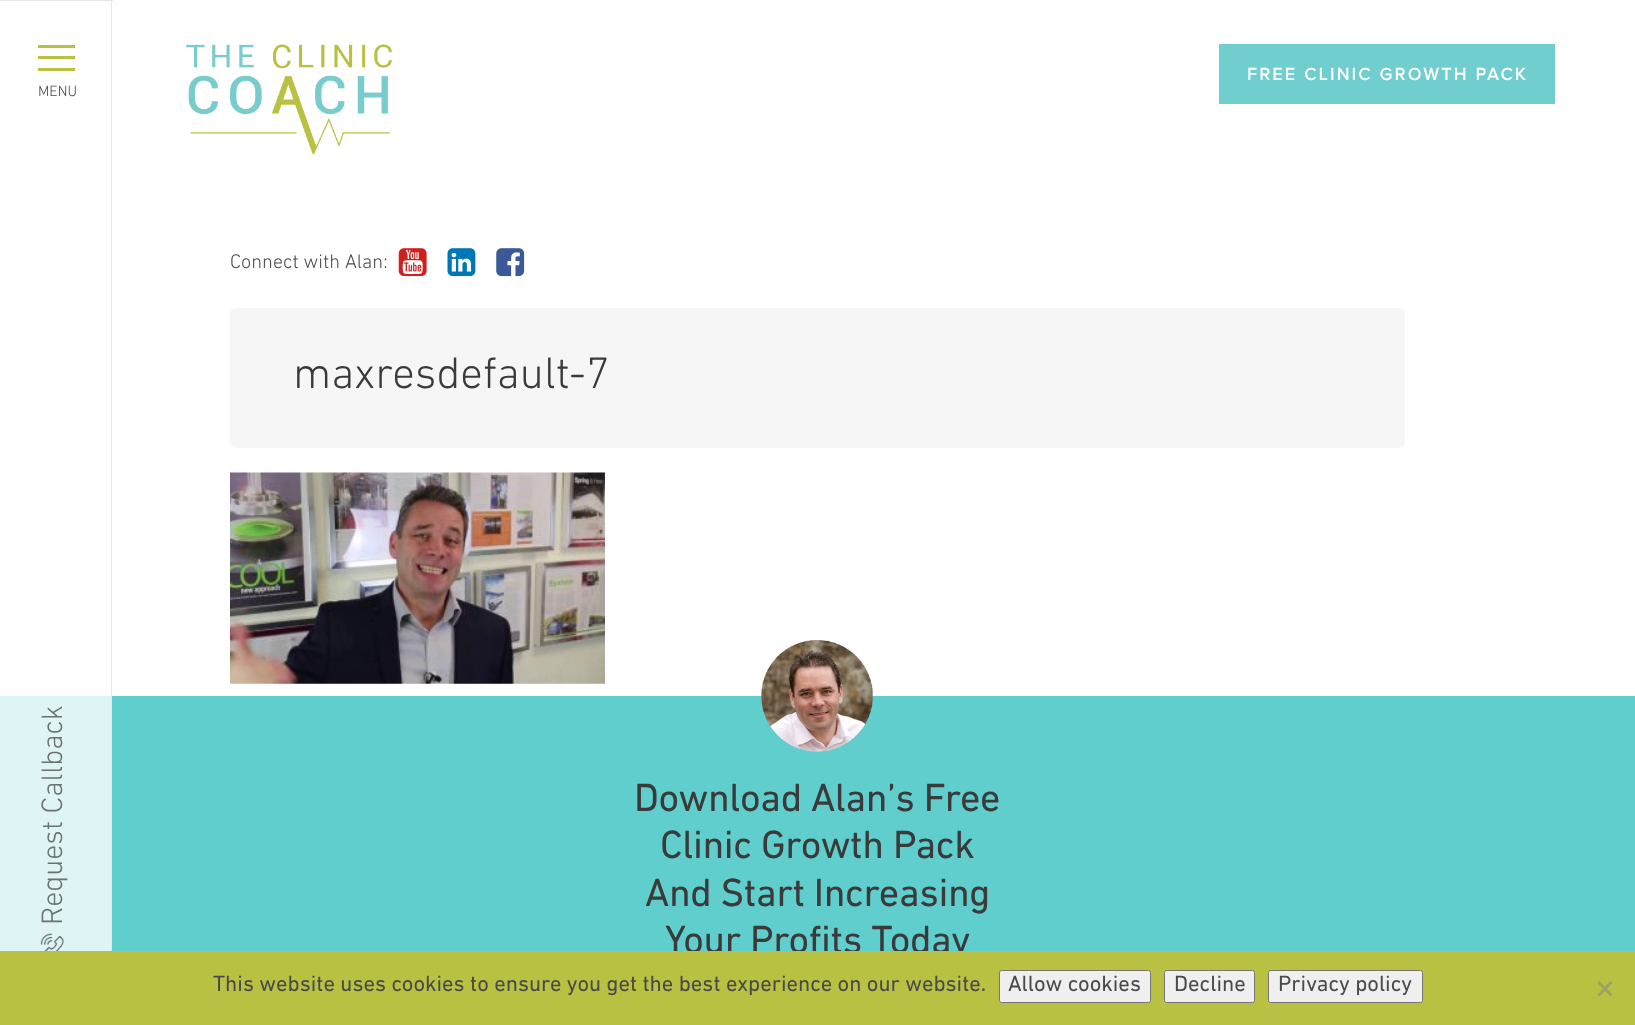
async function draw(canvas) {
	canvas.width = 1635;
	canvas.height = 1025;
	const c = canvas.getContext('2d');
	c.miterLimit = 4;
	c.fontKerning = 'normal';
	async function loadImage(src) {
		const img = new Image();
		img.src = src;
		await img.decode();
		return img;
	}

	c.fillStyle = '#fff';
	c.fillRect(0, 0, 1635, 1025);
	c.drawImage(await loadImage('img1.png'), 186, 44, 206, 111);
	c.fillStyle = '#70cece';
	c.fillRect(1219, 44, 336, 60);
	c.letterSpacing = '2.5px';
	c.font = 'bold 17.5px Proxima Nova';
	c.fillStyle = '#fff';
	c.fillText('FREE CLINIC GROWTH PACK', 1247, 80);
	for (const [x, y, w, h, color] of [
		[0, 0, 113, 1, '#e7e7e7'],
		[111, 0, 1, 951, '#e7e7e7'],
		[38, 45, 37, 3, '#b9c143'],
		[38, 56, 37, 3, '#b9c143'],
		[38, 68, 37, 3, '#b9c143'],
	]) {
		c.fillStyle = color;
		c.fillRect(x, y, w, h);
	}
	c.letterSpacing = '0px';
	c.font = '300 15px DIN Next';
	c.fillStyle = '#4a4a4a';
	c.fillText('MENU', 38, 96);
	c.fillStyle = '#dff5f5';
	c.fillRect(0, 696, 111, 255);
	c.drawImage(await loadImage('img2.png'), 40, 933, 24, 18);
	c.font = '300 30px DIN Next';
	c.fillStyle = '#6c7272';
	c.save();
	c.translate(62, 925);
	c.rotate(-90 * Math.PI / 180);
	c.fillText('Request Callback', 0, 0);
	c.restore();
	c.font = '300 20px DIN Next';
	c.fillStyle = '#4a4a4a';
	c.fillText('Connect with Alan:', 230, 268);
	c.drawImage(await loadImage('img3.png'), 398, 248, 29, 29);
	c.drawImage(await loadImage('img4.png'), 447, 248, 29, 29);
	c.drawImage(await loadImage('img5.png'), 496, 248, 29, 29);
	c.fillStyle = '#f6f6f6';
	c.beginPath();
	c.roundRect(230, 308, 1175, 140, 6);
	c.fill();
	c.font = '300 45px DIN Next';
	c.fillStyle = '#3a3a3a';
	c.fillText('maxresdefault-7', 293, 388);
	c.drawImage(await loadImage('img6.png'), 230, 472, 375, 212);
	c.fillStyle = '#5fcecd';
	c.fillRect(112, 696, 1523, 255);
	c.drawImage(await loadImage('img7.png'), 761, 640, 112, 112);
	c.letterSpacing = '-0.4px';
	c.font = '40px DIN Next';
	c.fillStyle = '#3a3a3a';
	for (const [text, x, y] of [
		['Download Alan’s Free', 634, 811],
		['Clinic Growth Pack', 660, 858],
		['And Start Increasing', 645, 906],
		['Your Profits Today', 665, 953],
	]) {
		c.fillText(text, x, y);
	}
	c.fillStyle = '#b9c143';
	c.fillRect(0, 951, 1635, 74);
	c.letterSpacing = '0px';
	c.font = '22.5px DIN Next';
	c.fillStyle = '#4a4a4a';
	c.fillText('This website uses cookies to ensure you get the best experience on our website.', 213, 991);
	c.fillStyle = '#efefef';
	c.beginPath();
	c.roundRect(999.5, 970.5, 151, 32, 2);
	c.fill();
	c.strokeStyle = '#767676';
	c.stroke();
	c.fillStyle = '#4a4a4a';
	c.fillText('Allow cookies', 1008, 991);
	c.fillStyle = '#efefef';
	c.beginPath();
	c.roundRect(1164.5, 970.5, 90, 32, 2);
	c.fill();
	c.stroke();
	c.fillStyle = '#4a4a4a';
	c.fillText('Decline', 1174, 991);
	c.fillStyle = '#efefef';
	c.beginPath();
	c.roundRect(1268.5, 970.5, 154, 32, 2);
	c.fill();
	c.stroke();
	c.fillStyle = '#4a4a4a';
	c.fillText('Privacy policy', 1278, 991);
	c.fillStyle = '#9da162';
	c.beginPath();
	c.moveTo(1610.5, 981);
	c.lineTo(1612.5, 983);
	c.lineTo(1599.5, 996.5);
	c.lineTo(1597.5, 994.5);
	c.closePath();
	c.fill();
	c.beginPath();
	c.moveTo(1597.5, 983);
	c.lineTo(1599.5, 981);
	c.lineTo(1612.5, 994.5);
	c.lineTo(1610.5, 996.5);
	c.closePath();
	c.fill();
}

draw(document.querySelector('canvas'));
